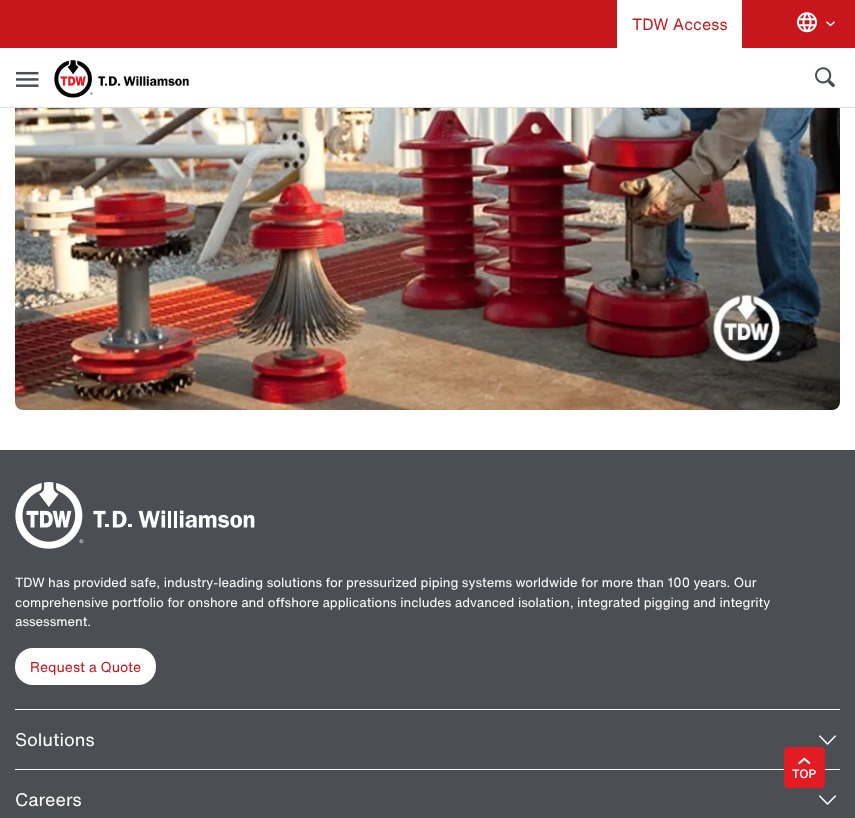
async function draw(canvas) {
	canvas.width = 855;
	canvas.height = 818;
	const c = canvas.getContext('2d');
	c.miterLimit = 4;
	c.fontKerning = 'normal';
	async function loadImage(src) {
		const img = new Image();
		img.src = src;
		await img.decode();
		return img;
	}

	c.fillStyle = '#fff';
	c.fillRect(0, 0, 855, 818);
	c.fillStyle = '#c8161d';
	c.fillRect(0, 0, 855, 48);
	c.fillStyle = '#fff';
	c.fillRect(617, 0, 125, 48);
	c.font = '16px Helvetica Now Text';
	c.fillStyle = '#c8161d';
	c.fillText('TDW Access', 632, 30);
	c.drawImage(await loadImage('img1.png'), 797, 12, 20, 21);
	c.drawImage(await loadImage('img2.png'), 826, 21, 9, 6);
	c.fillStyle = '#dcddde';
	c.fillRect(0, 107, 855, 1);
	c.drawImage(await loadImage('img3.png'), 16, 71, 23, 16);
	c.drawImage(await loadImage('img4.png'), 54, 60, 135, 38);
	c.drawImage(await loadImage('img5.png'), 815, 67, 20, 21);
	c.drawImage(await loadImage('img6.png'), 15, 108, 825, 302);
	c.fillStyle = '#4b4f54';
	c.fillRect(0, 450, 855, 368);
	c.drawImage(await loadImage('img7.png'), 15, 482, 240, 67);
	c.font = '13px Helvetica Now Text';
	c.fillStyle = '#fff';
	for (const [text, x, y] of [
		['TDW has provided safe, industry-leading solutions for pressurized piping systems worldwide for more than 100 years. Our', 15, 587],
		['comprehensive portfolio for onshore and offshore applications includes advanced isolation, integrated pigging and integrity', 15, 607],
		['assessment.', 15, 626],
	]) {
		c.fillText(text, x, y);
	}
	c.beginPath();
	c.roundRect(15, 648, 141, 37, 18);
	c.fill();
	c.font = '14px Helvetica Now Text';
	c.fillStyle = '#c8161d';
	c.fillText('Request a Quote', 30, 672);
	c.fillStyle = '#fff';
	c.fillRect(15, 709, 825, 1);
	c.font = '18px Helvetica Now Text';
	c.fillText('Solutions', 15, 746);
	c.drawImage(await loadImage('img8.png'), 819, 735, 17, 10);
	c.fillRect(15, 769, 825, 1);
	c.fillText('Careers', 15, 806);
	c.drawImage(await loadImage('img8.png'), 819, 795, 17, 10);
	c.fillStyle = '#e31b23';
	c.beginPath();
	c.roundRect(784, 747, 41, 41, 4);
	c.fill();
	c.drawImage(await loadImage('img9.png'), 798, 757, 13, 8);
	c.font = '500 12px Helvetica Now Text';
	c.fillStyle = '#fff';
	c.fillText('TOP', 792, 778);
}

draw(document.querySelector('canvas'));
